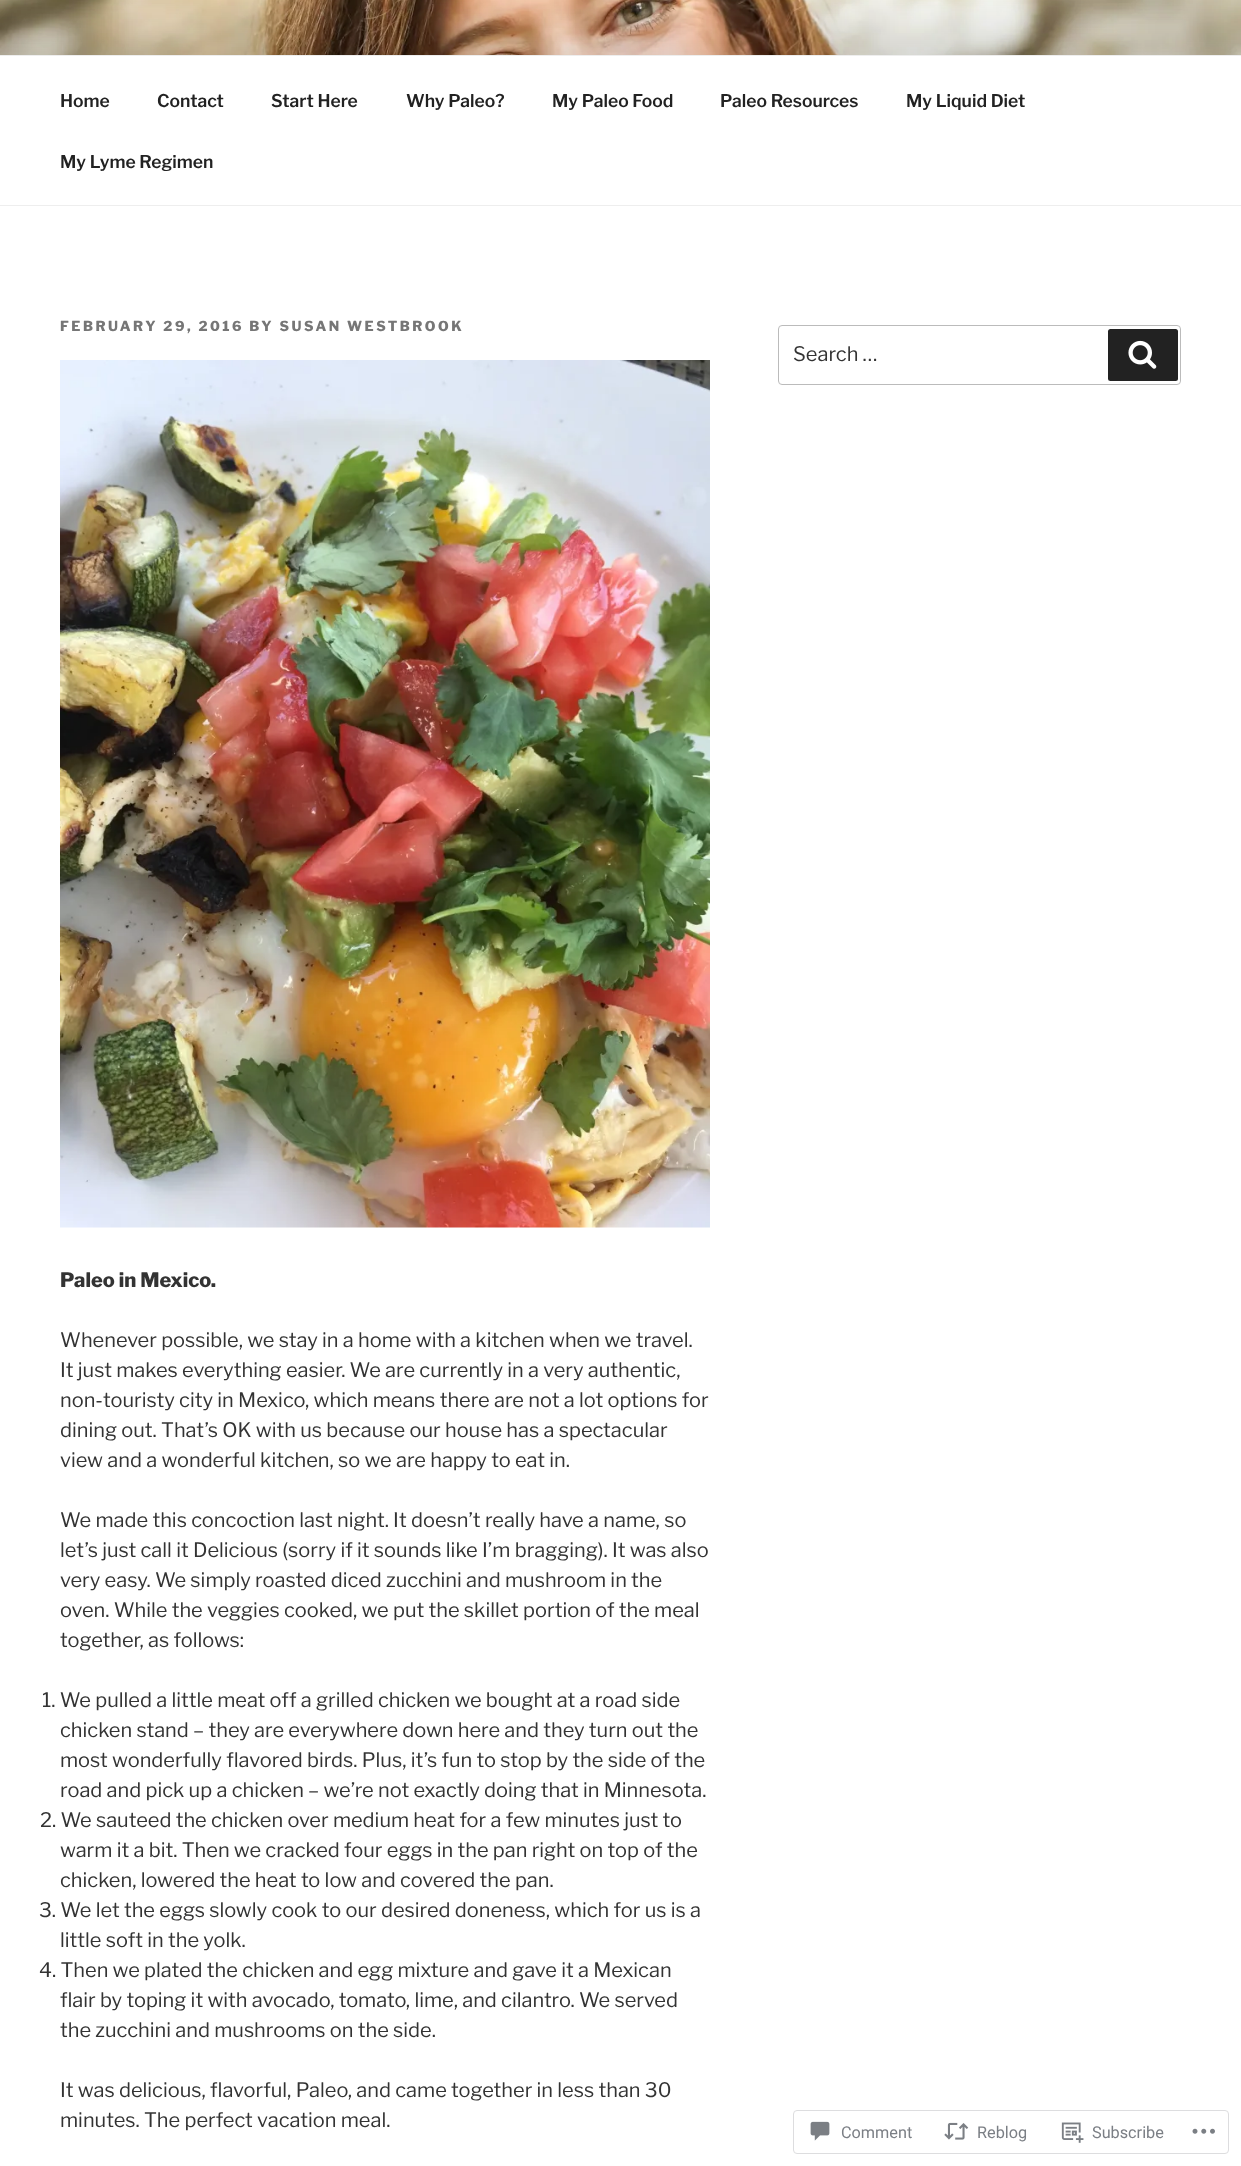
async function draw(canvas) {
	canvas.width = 1241;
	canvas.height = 2166;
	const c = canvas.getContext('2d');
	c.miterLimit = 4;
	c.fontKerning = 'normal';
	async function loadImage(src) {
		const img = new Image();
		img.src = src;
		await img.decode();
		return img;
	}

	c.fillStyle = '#fff';
	c.fillRect(0, 0, 1241, 2166);
	c.drawImage(await loadImage('img1.png'), 0, 0, 1241, 55);
	c.fillStyle = '#eee';
	c.fillRect(0, 55, 1241, 1);
	c.fillRect(0, 205, 1241, 1);
	c.font = '100 17.5px "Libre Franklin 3"';
	c.fillStyle = '#222';
	for (const [text, x, y] of [
		['Home', 60, 107],
		['Contact', 157, 107],
		['Start Here', 271, 107],
		['Why Paleo?', 406, 107],
		['My Paleo Food', 552, 107],
		['Paleo Resources', 720, 107],
		['My Liquid Diet', 906, 107],
		['My Lyme Regimen', 60, 168],
	]) {
		c.fillText(text, x, y);
	}
	c.letterSpacing = '2.5px';
	c.font = '100 13.75px Libre Franklin';
	c.fillStyle = '#767676';
	c.fillText('FEBRUARY 29, 2016 BY SUSAN WESTBROOK', 60, 331);
	c.drawImage(await loadImage('img2.png'), 60, 360, 650, 868);
	c.letterSpacing = '0px';
	c.font = '100 20px Libre Franklin';
	c.fillStyle = '#333';
	c.fillText('Paleo in Mexico.', 60, 1287);
	c.font = '100 20px "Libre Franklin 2"';
	for (const [text, x, y] of [
		['Whenever possible, we stay in a home with a kitchen when we travel.', 60, 1347],
		['It just makes everything easier. We are currently in a very authentic,', 60, 1377],
		['non-touristy city in Mexico, which means there are not a lot options for', 60, 1407],
		['dining out. That’s OK with us because our house has a spectacular', 60, 1437],
		['view and a wonderful kitchen, so we are happy to eat in.', 60, 1467],
		['We made this concoction last night. It doesn’t really have a name, so', 60, 1527],
		['let’s just call it Delicious (sorry if it sounds like I’m bragging). It was also', 60, 1557],
		['very easy. We simply roasted diced zucchini and mushroom in the', 60, 1587],
		['oven. While the veggies cooked, we put the skillet portion of the meal', 60, 1617],
		['together, as follows:', 60, 1647],
		['1. We pulled a little meat off a grilled chicken we bought at a road side', 42, 1707],
		['chicken stand – they are everywhere down here and they turn out the', 60, 1737],
		['most wonderfully flavored birds. Plus, it’s fun to stop by the side of the', 60, 1767],
		['road and pick up a chicken – we’re not exactly doing that in Minnesota.', 60, 1797],
		['2. We sauteed the chicken over medium heat for a few minutes just to', 40, 1827],
		['warm it a bit. Then we cracked four eggs in the pan right on top of the', 60, 1857],
		['chicken, lowered the heat to low and covered the pan.', 60, 1887],
		['3. We let the eggs slowly cook to our desired doneness, which for us is a', 39, 1917],
		['little soft in the yolk.', 60, 1947],
		['4. Then we plated the chicken and egg mixture and gave it a Mexican', 39, 1977],
		['flair by toping it with avocado, tomato, lime, and cilantro. We served', 60, 2007],
		['the zucchini and mushrooms on the side.', 60, 2037],
		['It was delicious, flavorful, Paleo, and came together in less than 30', 60, 2097],
		['minutes. The perfect vacation meal.', 60, 2127],
	]) {
		c.fillText(text, x, y);
	}
	c.beginPath();
	c.roundRect(778.5, 325.5, 402, 59, 3.5);
	c.strokeStyle = '#bbb';
	c.stroke();
	c.fillText('Search …', 793, 361);
	c.fillStyle = '#222';
	c.beginPath();
	c.roundRect(1108, 329, 70, 52, 2.5);
	c.fill();
	c.drawImage(await loadImage('img3.png'), 1128, 340, 29, 29);
	c.beginPath();
	c.roundRect(793.5, 2110.5, 435, 43, 3.5);
	c.strokeStyle = '#dddddf';
	c.stroke();
	c.drawImage(await loadImage('img4.png'), 810, 2121, 20, 20);
	c.font = '16.25px Roboto';
	c.fillStyle = '#7b7f85';
	c.fillText('Comment', 841, 2138);
	c.drawImage(await loadImage('img5.png'), 944, 2122, 25, 18);
	c.fillText('Reblog', 977, 2138);
	c.drawImage(await loadImage('img6.png'), 1061, 2122, 23, 21);
	c.fillText('Subscribe', 1092, 2138);
	c.drawImage(await loadImage('img7.png'), 1192, 2128, 23, 6);
}

draw(document.querySelector('canvas'));
